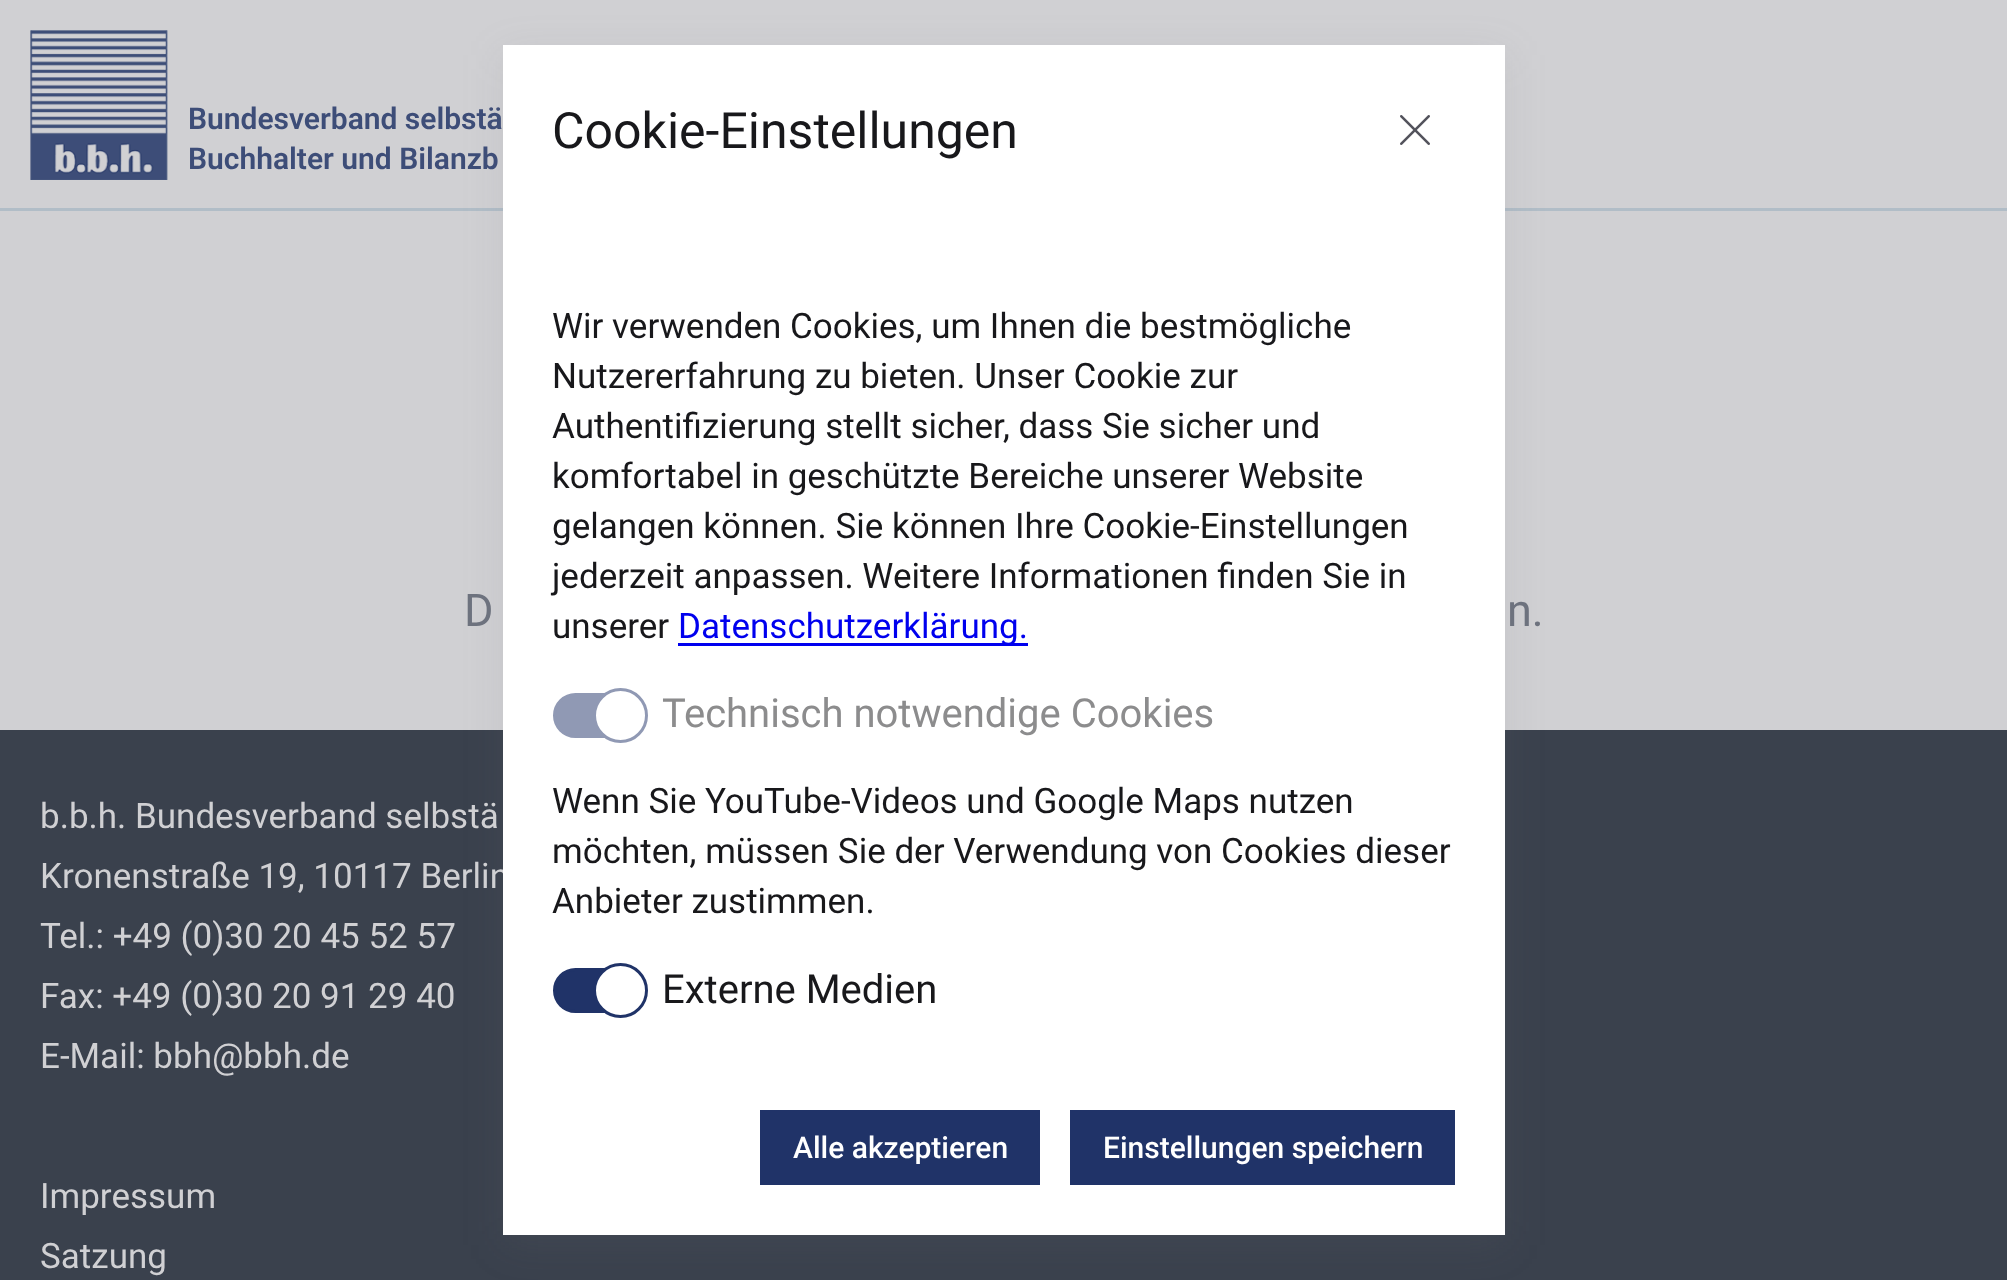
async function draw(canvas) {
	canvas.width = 2007;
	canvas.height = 1280;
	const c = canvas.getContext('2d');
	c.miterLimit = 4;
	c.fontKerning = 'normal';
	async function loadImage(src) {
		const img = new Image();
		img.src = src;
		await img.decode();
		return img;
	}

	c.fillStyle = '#d0d0d3';
	c.fillRect(0, 0, 2007, 1280);
	c.fillStyle = '#b1bdc7';
	c.fillRect(0, 208, 2007, 3);
	c.drawImage(await loadImage('img1.png'), 30, 30, 138, 150);
	c.font = '600 30px Roboto';
	c.fillStyle = '#3d4d78';
	c.fillText('Bundesverband selbstä', 188, 129);
	c.fillText('Buchhalter und Bilanzb', 188, 169);
	c.fillStyle = '#3a414d';
	c.fillRect(0, 730, 2007, 550);
	c.fillStyle = '#71717a1f';
	c.filter = 'blur(20px)';
	c.beginPath();
	c.rect(503, 55, 1002, 1190);
	c.fill();
	c.filter = 'none';
	c.font = '35px "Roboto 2"';
	c.fillStyle = '#d0d0d3';
	c.fillText('Kronenstraße 19, 10117 Berlin', 40, 888);
	c.fillStyle = '#fff';
	c.fillRect(503, 45, 1002, 1190);
	c.font = '50px Roboto';
	c.fillStyle = '#18181b';
	c.fillText('Cookie-Einstellungen', 552, 148);
	c.drawImage(await loadImage('img2.png'), 1400, 115, 30, 30);
	c.font = '35px "Roboto 2"';
	for (const [text, x, y] of [
		['Wir verwenden Cookies, um Ihnen die bestmögliche', 552, 338],
		['Nutzererfahrung zu bieten. Unser Cookie zur', 552, 388],
		['Authentifizierung stellt sicher, dass Sie sicher und', 552, 438],
		['komfortabel in geschützte Bereiche unserer Website', 552, 488],
		['gelangen können. Sie können Ihre Cookie-Einstellungen', 552, 538],
		['jederzeit anpassen. Weitere Informationen finden Sie in', 552, 588],
		['unserer', 552, 638],
	]) {
		c.fillText(text, x, y);
	}
	c.fillStyle = '#00e';
	c.fillRect(678, 643, 350, 3);
	c.fillText('Datenschutzerklärung.', 678, 638);
	c.fillStyle = '#9099b4';
	c.beginPath();
	c.roundRect(554.5, 694.5, 87, 42, 21);
	c.fill();
	c.strokeStyle = '#9099b4';
	c.lineWidth = 3;
	c.stroke();
	c.fillStyle = '#fff';
	c.beginPath();
	c.arc(620.5, 715.5, 26, 0, 2 * Math.PI);
	c.fill();
	c.stroke();
	c.font = '40px Roboto';
	c.fillStyle = '#8c8c8d';
	c.fillText('Technisch notwendige Cookies', 662, 727);
	c.font = '35px "Roboto 2"';
	c.fillStyle = '#18181b';
	for (const [text, x, y] of [
		['Wenn Sie YouTube-Videos und Google Maps nutzen', 552, 813],
		['möchten, müssen Sie der Verwendung von Cookies dieser', 552, 863],
		['Anbieter zustimmen.', 552, 913],
	]) {
		c.fillText(text, x, y);
	}
	c.fillStyle = '#203368';
	c.beginPath();
	c.roundRect(554.5, 969.5, 87, 42, 21);
	c.fill();
	c.strokeStyle = '#203368';
	c.stroke();
	c.fillStyle = '#fff';
	c.beginPath();
	c.arc(620.5, 990.5, 26, 0, 2 * Math.PI);
	c.fill();
	c.stroke();
	c.font = '40px Roboto';
	c.fillStyle = '#18181b';
	c.fillText('Externe Medien', 662, 1003);
	c.fillStyle = '#203368';
	c.fillRect(760, 1110, 280, 75);
	c.font = '500 30px Roboto';
	c.fillStyle = '#fff';
	c.fillText('Alle akzeptieren', 793, 1158);
	c.fillStyle = '#203368';
	c.fillRect(1070, 1110, 385, 75);
	c.fillStyle = '#fff';
	c.fillText('Einstellungen speichern', 1103, 1158);
	c.font = '45px Roboto';
	c.fillStyle = '#6d727e';
	c.fillText('D', 464, 626);
	c.fillText('n.', 1507, 626);
	c.font = '35px "Roboto 2"';
	c.fillStyle = '#d0d0d3';
	for (const [text, x, y] of [
		['b.b.h. Bundesverband selbstä', 40, 828],
		['Tel.: +49 (0)30 20 45 52 57', 40, 948],
		['Fax: +49 (0)30 20 91 29 40', 40, 1008],
		['E-Mail: bbh@bbh.de', 40, 1068],
		['Impressum', 40, 1208],
		['Satzung', 40, 1268],
	]) {
		c.fillText(text, x, y);
	}
}

draw(document.querySelector('canvas'));
